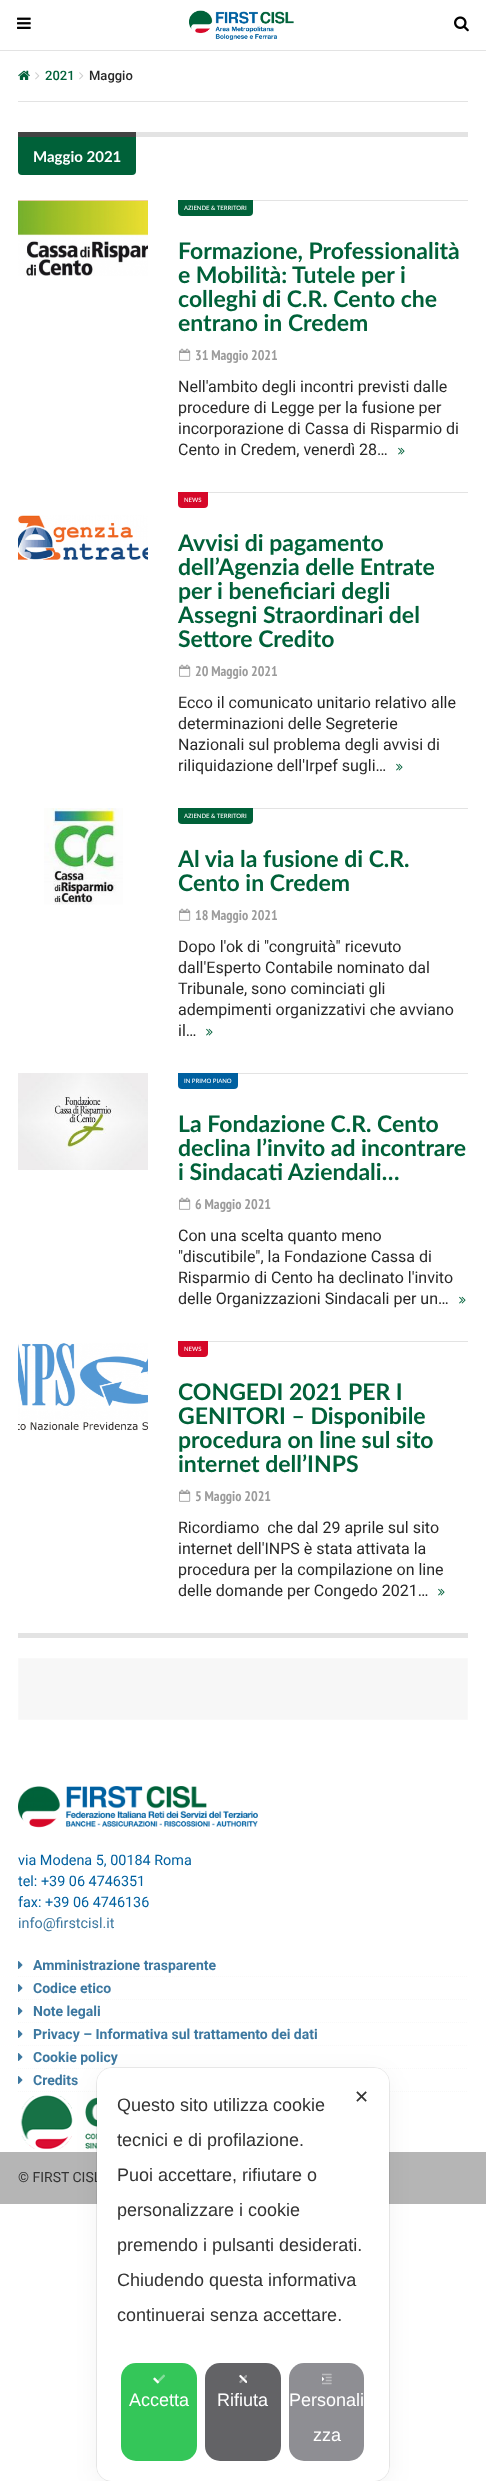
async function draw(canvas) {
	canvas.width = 486;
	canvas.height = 2481;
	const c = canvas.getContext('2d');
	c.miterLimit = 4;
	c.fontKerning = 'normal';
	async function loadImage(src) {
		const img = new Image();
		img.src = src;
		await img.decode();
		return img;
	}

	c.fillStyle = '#fff';
	c.fillRect(0, 0, 486, 2481);
	c.fillStyle = '#e3e3e3';
	c.fillRect(0, 50, 486, 1);
	c.drawImage(await loadImage('img1.png'), 17, 17, 14, 12);
	c.drawImage(await loadImage('img2.png'), 189, 10, 105, 30);
	c.drawImage(await loadImage('img3.png'), 454, 16, 15, 16);
	c.fillRect(18, 101, 450, 1);
	c.drawImage(await loadImage('img4.png'), 18, 70, 12, 10);
	c.drawImage(await loadImage('img5.png'), 35, 72, 5, 8);
	c.font = '500 13px Roboto';
	c.fillStyle = '#006139';
	c.fillText('2021', 45, 80);
	c.drawImage(await loadImage('img5.png'), 79, 72, 5, 8);
	c.fillStyle = '#282828';
	c.fillText('Maggio', 89, 80);
	c.fillStyle = '#e3e3e3';
	c.fillRect(136, 132, 332, 5);
	c.fillStyle = '#006139';
	c.beginPath();
	c.roundRect(18, 132, 118, 43, [0, 0, 4, 4]);
	c.fill();
	c.fillStyle = '#434343';
	c.fillRect(18, 132, 118, 5);
	c.font = 'bold 15px Lato';
	c.fillStyle = '#fff';
	c.fillText('Maggio 2021', 33, 162);
	c.drawImage(await loadImage('img6.png'), 18, 200, 130, 76);
	c.fillStyle = '#e3e3e3';
	c.fillRect(253, 200, 215, 1);
	c.fillStyle = '#006139';
	c.beginPath();
	c.roundRect(178, 200, 75, 16, [0, 0, 4, 4]);
	c.fill();
	c.font = '500 6px Lato';
	c.fillStyle = '#fff';
	c.fillText('AZIENDE & TERRITORI', 184, 210);
	c.font = 'bold 23px Lato';
	c.fillStyle = '#006139';
	for (const [text, x, y] of [
		['Formazione, Professionalità', 178, 259],
		['e Mobilità: Tutele per i', 178, 283],
		['colleghi di C.R. Cento che', 178, 307],
		['entrano in Credem', 178, 331],
	]) {
		c.fillText(text, x, y);
	}
	c.drawImage(await loadImage('img7.png'), 179, 348, 12, 13);
	c.font = 'bold 14px PT Sans Narrow';
	c.fillStyle = '#9b9b9b';
	c.fillText('31 Maggio 2021', 195, 360);
	c.font = '16px Roboto';
	c.fillStyle = '#282828';
	for (const [text, x, y] of [
		['Nell\'ambito degli incontri previsti dalle', 178, 392],
		['procedure di Legge per la fusione per', 178, 413],
		['incorporazione di Cassa di Risparmio di', 178, 434],
		['Cento in Credem, venerdì 28…', 178, 455],
	]) {
		c.fillText(text, x, y);
	}
	c.drawImage(await loadImage('img8.png'), 398, 447, 7, 8);
	c.drawImage(await loadImage('img9.png'), 18, 515, 130, 45);
	c.fillStyle = '#e3e3e3';
	c.fillRect(208, 492, 260, 1);
	c.fillStyle = '#d60829';
	c.beginPath();
	c.roundRect(178, 492, 30, 16, [0, 0, 4, 4]);
	c.fill();
	c.font = '500 6px Lato';
	c.fillStyle = '#fff';
	c.fillText('NEWS', 184, 502);
	c.font = 'bold 23px Lato';
	c.fillStyle = '#006139';
	for (const [text, x, y] of [
		['Avvisi di pagamento', 178, 551],
		['dell’Agenzia delle Entrate', 178, 575],
		['per i beneficiari degli', 178, 599],
		['Assegni Straordinari del', 178, 623],
		['Settore Credito', 178, 647],
	]) {
		c.fillText(text, x, y);
	}
	c.drawImage(await loadImage('img7.png'), 179, 664, 12, 13);
	c.font = 'bold 14px PT Sans Narrow';
	c.fillStyle = '#9b9b9b';
	c.fillText('20 Maggio 2021', 195, 676);
	c.font = '16px Roboto';
	c.fillStyle = '#282828';
	for (const [text, x, y] of [
		['Ecco il comunicato unitario relativo alle', 178, 708],
		['determinazioni delle Segreterie', 178, 729],
		['Nazionali sul problema degli avvisi di', 178, 750],
		['riliquidazione dell\'Irpef sugli…', 178, 771],
	]) {
		c.fillText(text, x, y);
	}
	c.drawImage(await loadImage('img8.png'), 396, 763, 7, 8);
	c.drawImage(await loadImage('img10.png'), 44, 808, 79, 97);
	c.fillStyle = '#e3e3e3';
	c.fillRect(253, 808, 215, 1);
	c.fillStyle = '#006139';
	c.beginPath();
	c.roundRect(178, 808, 75, 16, [0, 0, 4, 4]);
	c.fill();
	c.font = '500 6px Lato';
	c.fillStyle = '#fff';
	c.fillText('AZIENDE & TERRITORI', 184, 818);
	c.font = 'bold 23px Lato';
	c.fillStyle = '#006139';
	c.fillText('Al via la fusione di C.R.', 178, 867);
	c.fillText('Cento in Credem', 178, 891);
	c.drawImage(await loadImage('img7.png'), 179, 908, 12, 13);
	c.font = 'bold 14px PT Sans Narrow';
	c.fillStyle = '#9b9b9b';
	c.fillText('18 Maggio 2021', 195, 920);
	c.font = '16px Roboto';
	c.fillStyle = '#282828';
	for (const [text, x, y] of [
		['Dopo l\'ok di "congruità" ricevuto', 178, 952],
		['dall\'Esperto Contabile nominato dal', 178, 973],
		['Tribunale, sono cominciati gli', 178, 994],
		['adempimenti organizzativi che avviano', 178, 1015],
		['il…', 178, 1036],
	]) {
		c.fillText(text, x, y);
	}
	c.drawImage(await loadImage('img8.png'), 206, 1028, 7, 8);
	c.drawImage(await loadImage('img11.png'), 18, 1073, 130, 97);
	c.fillStyle = '#e3e3e3';
	c.fillRect(238, 1073, 230, 1);
	c.fillStyle = '#0060a0';
	c.beginPath();
	c.roundRect(178, 1073, 60, 16, [0, 0, 4, 4]);
	c.fill();
	c.font = '500 6px Lato';
	c.fillStyle = '#fff';
	c.fillText('IN PRIMO PIANO', 184, 1083);
	c.font = 'bold 23px Lato';
	c.fillStyle = '#006139';
	for (const [text, x, y] of [
		['La Fondazione C.R. Cento', 178, 1132],
		['declina l’invito ad incontrare', 178, 1156],
		['i Sindacati Aziendali…', 178, 1180],
	]) {
		c.fillText(text, x, y);
	}
	c.drawImage(await loadImage('img7.png'), 179, 1197, 12, 13);
	c.font = 'bold 14px PT Sans Narrow';
	c.fillStyle = '#9b9b9b';
	c.fillText('6 Maggio 2021', 195, 1209);
	c.font = '16px Roboto';
	c.fillStyle = '#282828';
	for (const [text, x, y] of [
		['Con una scelta quanto meno', 178, 1241],
		['"discutibile", la Fondazione Cassa di', 178, 1262],
		['Risparmio di Cento ha declinato l\'invito', 178, 1283],
		['delle Organizzazioni Sindacali per un…', 178, 1304],
	]) {
		c.fillText(text, x, y);
	}
	c.drawImage(await loadImage('img8.png'), 459, 1296, 7, 8);
	c.drawImage(await loadImage('img12.png'), 18, 1343, 130, 88);
	c.fillStyle = '#e3e3e3';
	c.fillRect(208, 1341, 260, 1);
	c.fillStyle = '#d60829';
	c.beginPath();
	c.roundRect(178, 1341, 30, 16, [0, 0, 4, 4]);
	c.fill();
	c.font = '500 6px Lato';
	c.fillStyle = '#fff';
	c.fillText('NEWS', 184, 1351);
	c.font = 'bold 23px Lato';
	c.fillStyle = '#006139';
	for (const [text, x, y] of [
		['CONGEDI 2021 PER I', 178, 1400],
		['GENITORI – Disponibile', 178, 1424],
		['procedura on line sul sito', 178, 1448],
		['internet dell’INPS', 178, 1472],
	]) {
		c.fillText(text, x, y);
	}
	c.drawImage(await loadImage('img7.png'), 179, 1489, 12, 13);
	c.font = 'bold 14px PT Sans Narrow';
	c.fillStyle = '#9b9b9b';
	c.fillText('5 Maggio 2021', 195, 1501);
	c.font = '16px Roboto';
	c.fillStyle = '#282828';
	for (const [text, x, y] of [
		['Ricordiamo  che dal 29 aprile sul sito', 178, 1533],
		['internet dell\'INPS è stata attivata la', 178, 1554],
		['procedura per la compilazione on line', 178, 1575],
		['delle domande per Congedo 2021…', 178, 1596],
	]) {
		c.fillText(text, x, y);
	}
	c.drawImage(await loadImage('img8.png'), 438, 1588, 7, 8);
	c.fillStyle = '#e3e3e3';
	c.fillRect(18, 1633, 450, 5);
	c.fillStyle = '#f7f7f7';
	c.beginPath();
	c.rect(18.5, 1658.5, 449, 61);
	c.fill();
	c.strokeStyle = '#f9f9f9';
	c.stroke();
	c.drawImage(await loadImage('img13.png'), 18, 1786, 240, 42);
	c.font = '14.4px Roboto';
	c.fillStyle = '#0061a0';
	for (const [text, x, y] of [
		['via Modena 5, 00184 Roma', 18, 1865],
		['tel: +39 06 4746351', 18, 1886],
		['fax: +39 06 4746136', 18, 1907],
	]) {
		c.fillText(text, x, y);
	}
	c.fillStyle = '#3d78a0';
	c.fillText('info@firstcisl.it', 18, 1928);
	c.beginPath();
	c.moveTo(18, 1976.5);
	c.lineTo(468, 1976.5);
	c.setLineDash([1, 1]);
	c.stroke();
	c.drawImage(await loadImage('img14.png'), 18, 1961, 5, 8);
	c.font = 'bold 14px Roboto';
	c.fillText('Amministrazione trasparente', 33, 1970);
	c.beginPath();
	c.moveTo(18, 1999.5);
	c.lineTo(468, 1999.5);
	c.stroke();
	c.drawImage(await loadImage('img14.png'), 18, 1984, 5, 8);
	c.fillText('Codice etico', 33, 1993);
	c.beginPath();
	c.moveTo(18, 2022.5);
	c.lineTo(468, 2022.5);
	c.stroke();
	c.drawImage(await loadImage('img14.png'), 18, 2007, 5, 8);
	c.fillText('Note legali', 33, 2016);
	c.beginPath();
	c.moveTo(18, 2045.5);
	c.lineTo(468, 2045.5);
	c.stroke();
	c.drawImage(await loadImage('img14.png'), 18, 2030, 5, 8);
	c.fillText('Privacy – Informativa sul trattamento dei dati', 33, 2039);
	c.beginPath();
	c.moveTo(18, 2068.5);
	c.lineTo(468, 2068.5);
	c.stroke();
	c.drawImage(await loadImage('img14.png'), 18, 2053, 5, 8);
	c.fillText('Cookie policy', 33, 2062);
	c.beginPath();
	c.moveTo(18, 2091.5);
	c.lineTo(468, 2091.5);
	c.stroke();
	c.drawImage(await loadImage('img14.png'), 18, 2076, 5, 8);
	c.fillText('Credits', 33, 2085);
	c.drawImage(await loadImage('img15.png'), 20, 2095, 77, 54);
	c.fillStyle = '#b5b5b5';
	c.fillRect(0, 2152, 486, 52);
	c.font = '14px Roboto';
	c.fillStyle = '#333';
	c.fillText('© FIRST CISL', 18, 2182);
	c.beginPath();
	c.roundRect(96.5, 2067.5, 293, 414, 15.5);
	c.strokeStyle = '#00000014';
	c.setLineDash([]);
	c.stroke();
	c.fillStyle = '#0000000d';
	c.filter = 'blur(12px)';
	c.beginPath();
	c.roundRect(97, 2074, 292, 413, 15);
	c.fill();
	c.filter = 'none';
	c.fillStyle = '#fff';
	c.beginPath();
	c.roundRect(97, 2068, 292, 413, 15);
	c.fill();
	c.font = '18px DejaVu Sans';
	c.fillStyle = '#333';
	c.fillText('✕', 354, 2103);
	c.font = '18px Liberation Sans';
	for (const [text, x, y] of [
		['Questo sito utilizza cookie', 117, 2111],
		['tecnici e di profilazione.', 117, 2146],
		['Puoi accettare, rifiutare o', 117, 2181],
		['personalizzare i cookie', 117, 2216],
		['premendo i pulsanti desiderati.', 117, 2251],
		['Chiudendo questa informativa', 117, 2286],
		['continuerai senza accettare.', 117, 2321],
	]) {
		c.fillText(text, x, y);
	}
	c.fillStyle = '#34c659';
	c.beginPath();
	c.roundRect(121, 2363, 76, 98, 15);
	c.fill();
	c.drawImage(await loadImage('img16.png'), 153, 2374, 12, 10);
	c.fillStyle = '#fff';
	c.fillText('Accetta', 129, 2406);
	c.fillStyle = '#636366';
	c.beginPath();
	c.roundRect(205, 2363, 76, 98, 15);
	c.fill();
	c.drawImage(await loadImage('img17.png'), 239, 2374, 8, 10);
	c.fillStyle = '#fff';
	c.fillText('Rifiuta', 217, 2406);
	c.fillStyle = '#8e8e93';
	c.beginPath();
	c.roundRect(289, 2363, 75, 98, 15);
	c.fill();
	c.drawImage(await loadImage('img18.png'), 322, 2373, 10, 12);
	c.fillStyle = '#fff';
	c.fillText('Personali', 289, 2406);
	c.fillText('zza', 313, 2441);
}

draw(document.querySelector('canvas'));
